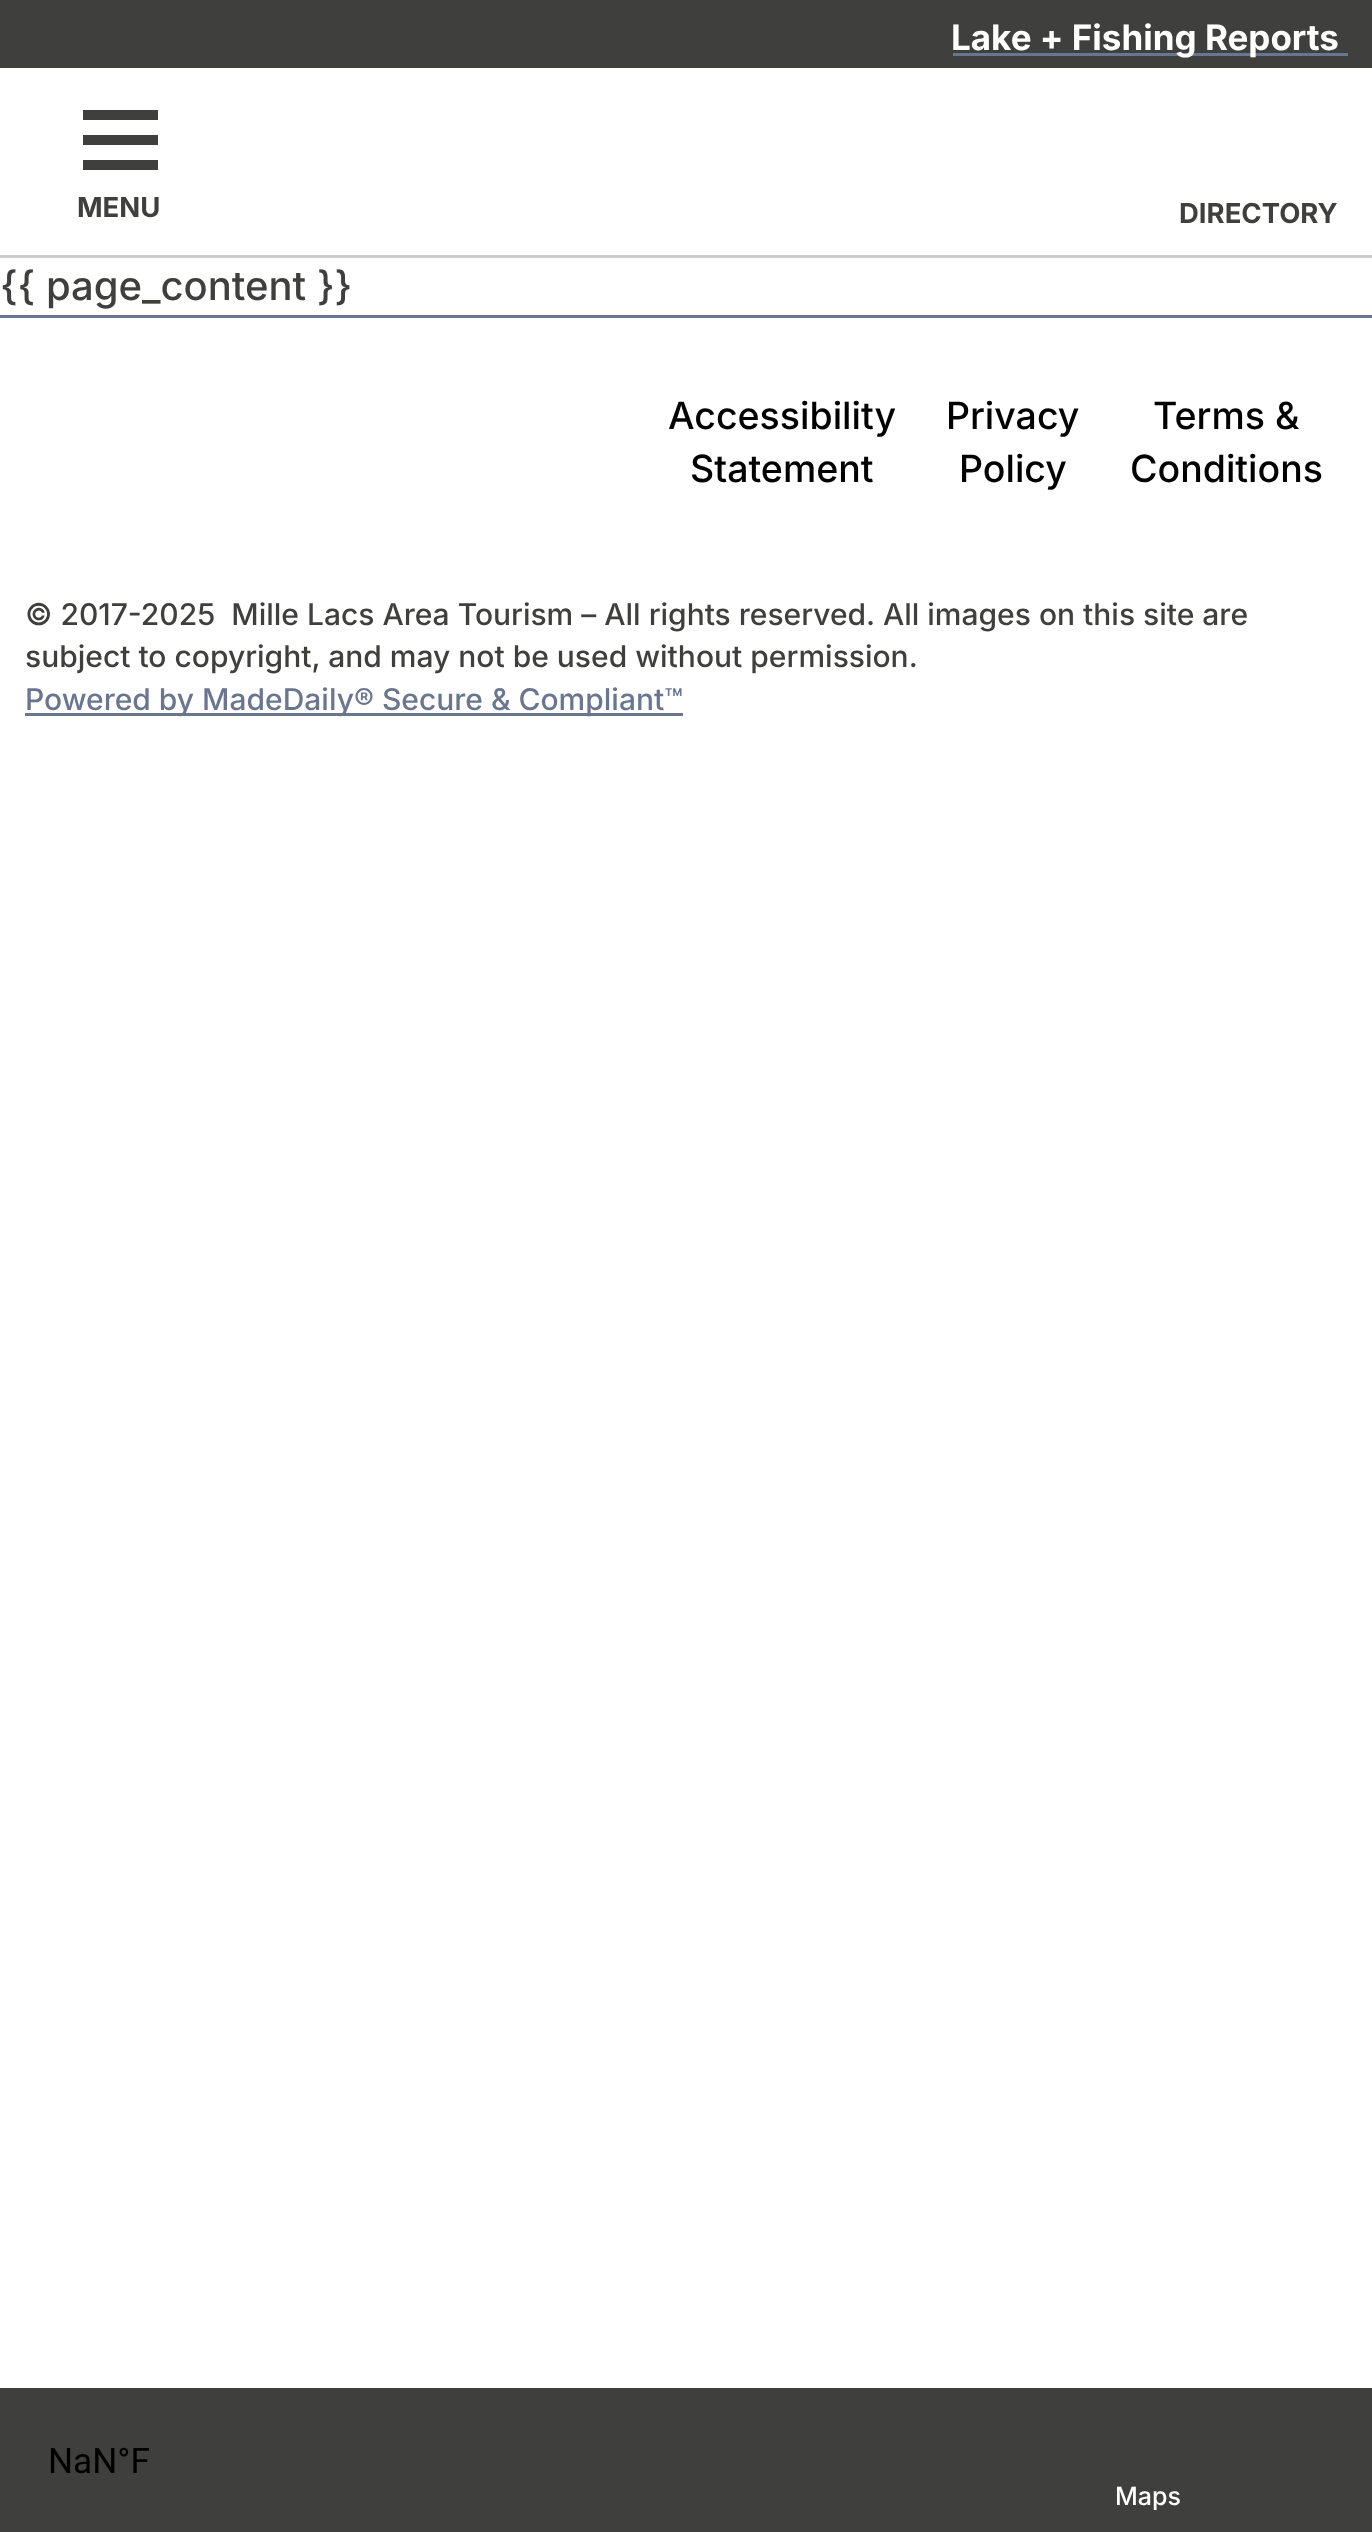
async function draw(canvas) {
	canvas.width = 1372;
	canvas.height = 2532;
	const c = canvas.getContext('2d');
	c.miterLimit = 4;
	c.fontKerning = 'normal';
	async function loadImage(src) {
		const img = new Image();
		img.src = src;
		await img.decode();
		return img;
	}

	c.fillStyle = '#fff';
	c.fillRect(0, 0, 1372, 2532);
	c.fillStyle = '#3f3f3d';
	c.fillRect(0, 0, 1372, 68);
	c.fillStyle = '#6a7690';
	c.fillRect(953, 53, 395, 3);
	c.font = 'bold 35px Inter';
	c.fillStyle = '#fff';
	c.fillText('Lake + Fishing Reports', 951, 50);
	for (const [x, y, w, h, color] of [
		[0, 255, 1372, 3, '#ccc'],
		[83, 110, 75, 10, '#3f3f3d'],
		[83, 135, 75, 10, '#3f3f3d'],
		[83, 160, 75, 10, '#3f3f3d'],
	]) {
		c.fillStyle = color;
		c.fillRect(x, y, w, h);
	}
	c.font = 'bold 27.5px Inter';
	c.fillText('MENU', 77, 217);
	c.fillText('DIRECTORY', 1179, 223);
	c.font = '500 40px Inter';
	c.fillText('{{ page_content }}', 0, 300);
	c.fillStyle = '#6a7690';
	c.fillRect(0, 315, 1372, 3);
	c.font = '500 37.5px Inter';
	c.fillStyle = '#000';
	for (const [text, x, y] of [
		['Accessibility', 668, 429],
		['Statement', 690, 482],
		['Privacy', 946, 429],
		['Policy', 959, 482],
		['Terms &', 1153, 429],
		['Conditions', 1130, 482],
	]) {
		c.fillText(text, x, y);
	}
	c.font = '500 30px Inter';
	c.fillStyle = '#3f3f3d';
	c.fillText('© 2017-2025  Mille Lacs Area Tourism – All rights reserved. All images on this site are', 25, 625);
	c.fillText('subject to copyright, and may not be used without permission.', 25, 667);
	c.fillStyle = '#6a7690';
	c.fillRect(25, 713, 658, 3);
	c.fillText('Powered by MadeDaily® Secure & Compliant™', 25, 710);
	c.fillStyle = '#3f3f3d';
	c.fillRect(0, 2388, 1372, 144);
	c.drawImage(await loadImage('img1.png'), 50, 2447, 99, 27);
	c.font = '500 25px Inter';
	c.fillStyle = '#fff';
	c.fillText('Maps', 1115, 2505);
}

draw(document.querySelector('canvas'));
